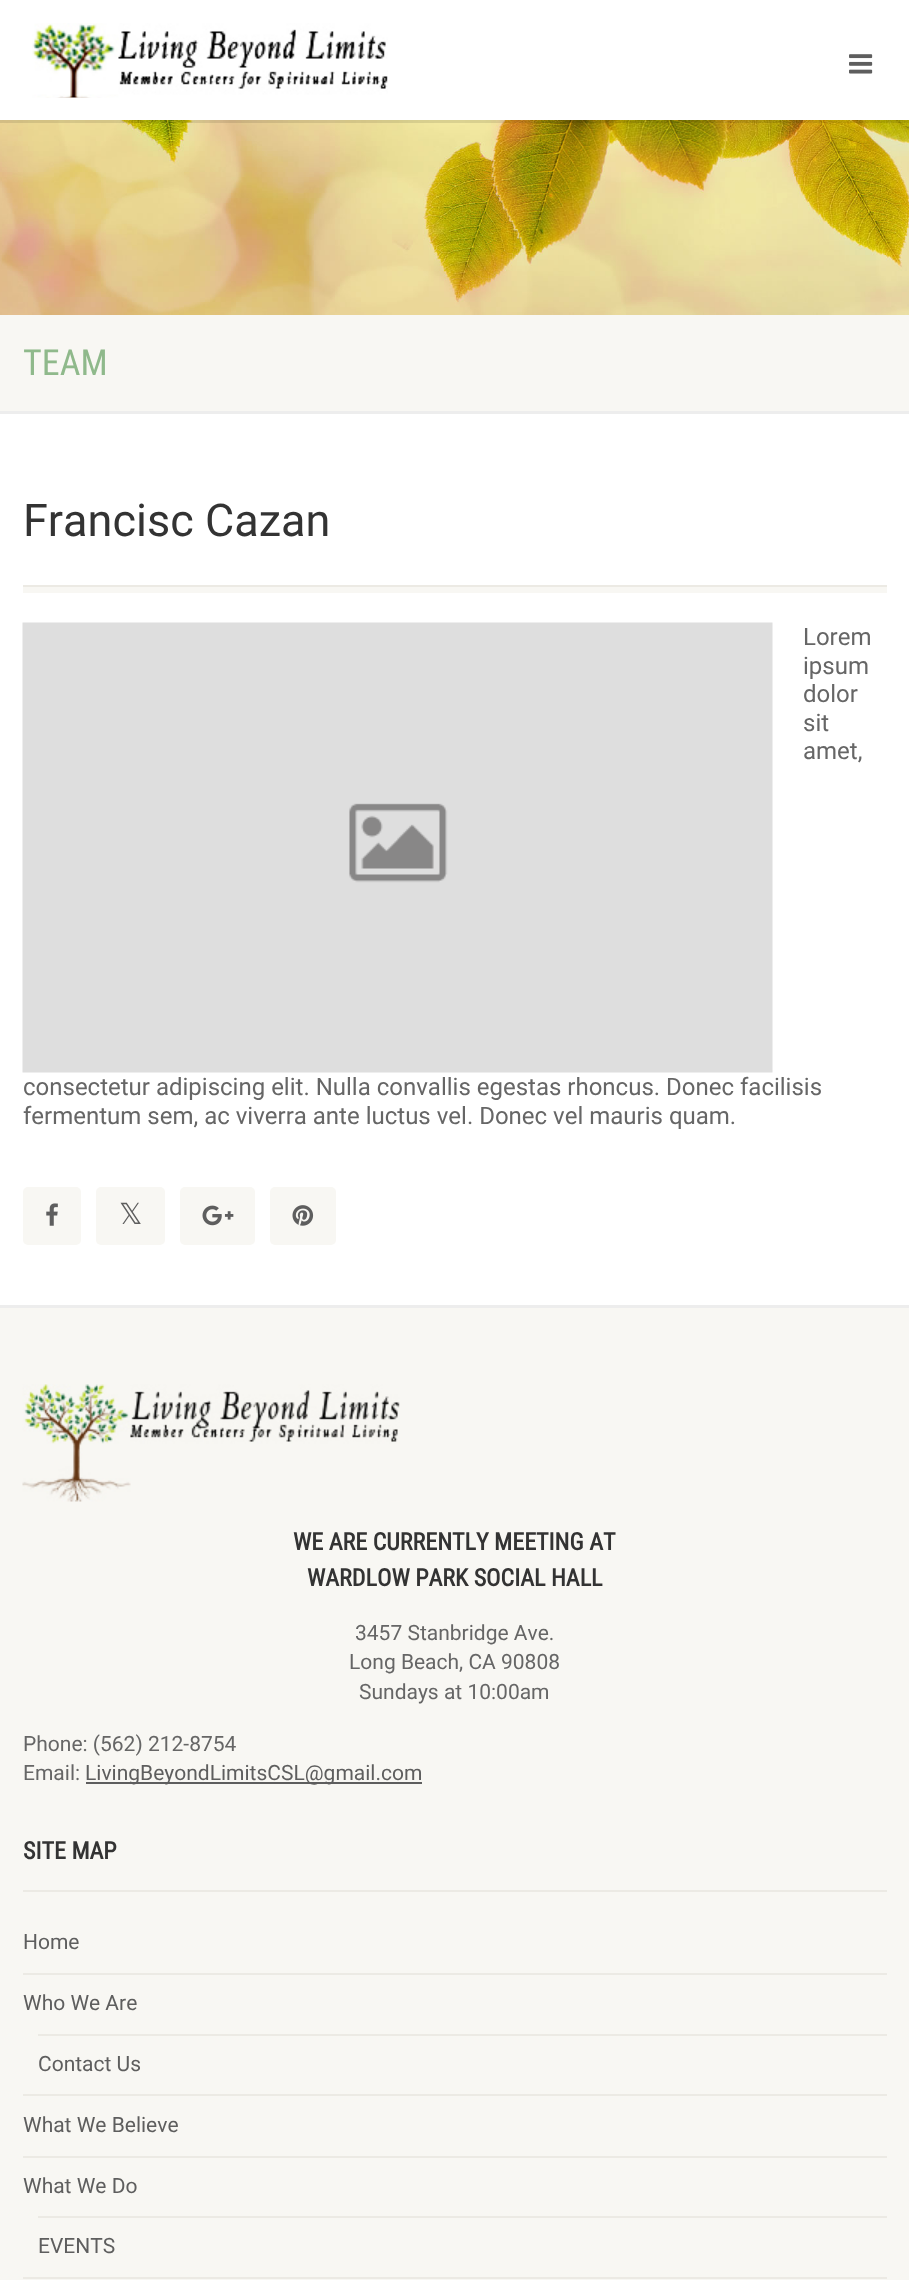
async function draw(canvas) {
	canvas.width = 909;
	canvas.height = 2280;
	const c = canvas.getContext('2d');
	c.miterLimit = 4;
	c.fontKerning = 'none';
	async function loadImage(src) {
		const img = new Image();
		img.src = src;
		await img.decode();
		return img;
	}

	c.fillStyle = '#fff';
	c.fillRect(0, 0, 909, 2280);
	c.drawImage(await loadImage('img3.png'), 0, 120, 909, 195);
	c.fillStyle = '#0000001a';
	c.fillRect(0, 120, 909, 3);
	c.drawImage(await loadImage('img1.png'), 32, 23, 356, 75);
	c.drawImage(await loadImage('img2.png'), 849, 54, 24, 20);
	c.fillStyle = '#ededed';
	c.fillRect(0, 411, 909, 3);
	c.fillStyle = '#f8f7f3';
	c.fillRect(0, 315, 909, 96);
	c.font = '36px Roboto Condensed';
	c.fillStyle = '#8fb98b';
	c.fillText('TEAM', 23, 375);
	c.fillStyle = '#eceae4';
	c.fillRect(23, 585, 864, 2);
	c.font = '45px Roboto';
	c.fillStyle = '#333';
	c.fillText('Francisc Cazan', 23, 536);
	c.fillStyle = '#f8f7f3';
	c.fillRect(23, 587, 864, 6);
	c.drawImage(await loadImage('img4.png'), 22, 622, 751, 451);
	c.font = '24px Roboto';
	c.fillStyle = '#666';
	for (const [text, x, y] of [
		['Lorem', 803, 645],
		['ipsum', 803, 674],
		['dolor', 803, 702],
		['sit', 803, 731],
		['amet,', 803, 759],
		['consectetur adipiscing elit. Nulla convallis egestas rhoncus. Donec facilisis', 23, 1095],
		['fermentum sem, ac viverra ante luctus vel. Donec vel mauris quam.', 23, 1124],
	]) {
		c.fillText(text, x, y);
	}
	c.fillStyle = '#f8f7f3';
	c.beginPath();
	c.roundRect(23, 1187, 58, 58, 5);
	c.fill();
	c.drawImage(await loadImage('img5.png'), 46, 1203, 12, 23);
	c.beginPath();
	c.roundRect(96, 1187, 69, 58, 5);
	c.fill();
	c.font = '29px DejaVu Sans';
	c.fillStyle = '#5e5e5e';
	c.fillText('𝕏', 119, 1224);
	c.fillStyle = '#f8f7f3';
	c.beginPath();
	c.roundRect(180, 1187, 75, 58, 5);
	c.fill();
	c.drawImage(await loadImage('img6.png'), 202, 1205, 32, 21);
	c.beginPath();
	c.roundRect(270, 1187, 66, 58, 5);
	c.fill();
	c.drawImage(await loadImage('img7.png'), 292, 1205, 22, 21);
	c.fillStyle = '#ededed';
	c.fillRect(0, 1305, 909, 3);
	c.fillStyle = '#f8f7f3';
	c.fillRect(0, 1308, 909, 972);
	c.drawImage(await loadImage('img8.png'), 22, 1384, 378, 118);
	c.font = 'bold 24px Roboto Condensed';
	c.fillStyle = '#333';
	c.fillText('WE ARE CURRENTLY MEETING AT', 293, 1550);
	c.fillText('WARDLOW PARK SOCIAL HALL', 307, 1586);
	c.font = '21px Roboto';
	c.fillStyle = '#666';
	for (const [text, x, y] of [
		['3457 Stanbridge Ave.', 355, 1640],
		['Long Beach, CA 90808', 349, 1669],
		['Sundays at 10:00am', 359, 1699],
		['Phone: (562) 212-8754', 23, 1751],
		['Email:', 23, 1780],
	]) {
		c.fillText(text, x, y);
	}
	c.fillStyle = '#5e5e5e';
	c.fillRect(86, 1782, 336, 2);
	c.fillText('LivingBeyondLimitsCSL@gmail.com', 85, 1780);
	c.font = 'bold 24px Roboto Condensed';
	c.fillStyle = '#333';
	c.fillText('SITE MAP', 23, 1859);
	c.fillStyle = '#eceae4';
	c.fillRect(23, 1890, 864, 2);
	c.fillRect(23, 1973, 864, 2);
	c.font = '21px Roboto';
	c.fillStyle = '#5e5e5e';
	c.fillText('Home', 23, 1949);
	c.fillStyle = '#eceae4';
	c.fillRect(23, 2094, 864, 2);
	c.fillStyle = '#5e5e5e';
	c.fillText('Who We Are', 23, 2010);
	c.fillStyle = '#eceae4';
	c.fillRect(38, 2034, 849, 2);
	c.fillStyle = '#5e5e5e';
	c.fillText('Contact Us', 38, 2071);
	c.fillStyle = '#eceae4';
	c.fillRect(23, 2156, 864, 2);
	c.fillStyle = '#5e5e5e';
	c.fillText('What We Believe', 23, 2132);
	c.fillStyle = '#eceae4';
	c.fillRect(23, 2277, 864, 2);
	c.fillStyle = '#5e5e5e';
	c.fillText('What We Do', 23, 2193);
	c.fillStyle = '#eceae4';
	c.fillRect(38, 2216, 849, 2);
	c.fillStyle = '#5e5e5e';
	c.fillText('EVENTS', 38, 2253);
}

draw(document.querySelector('canvas'));
